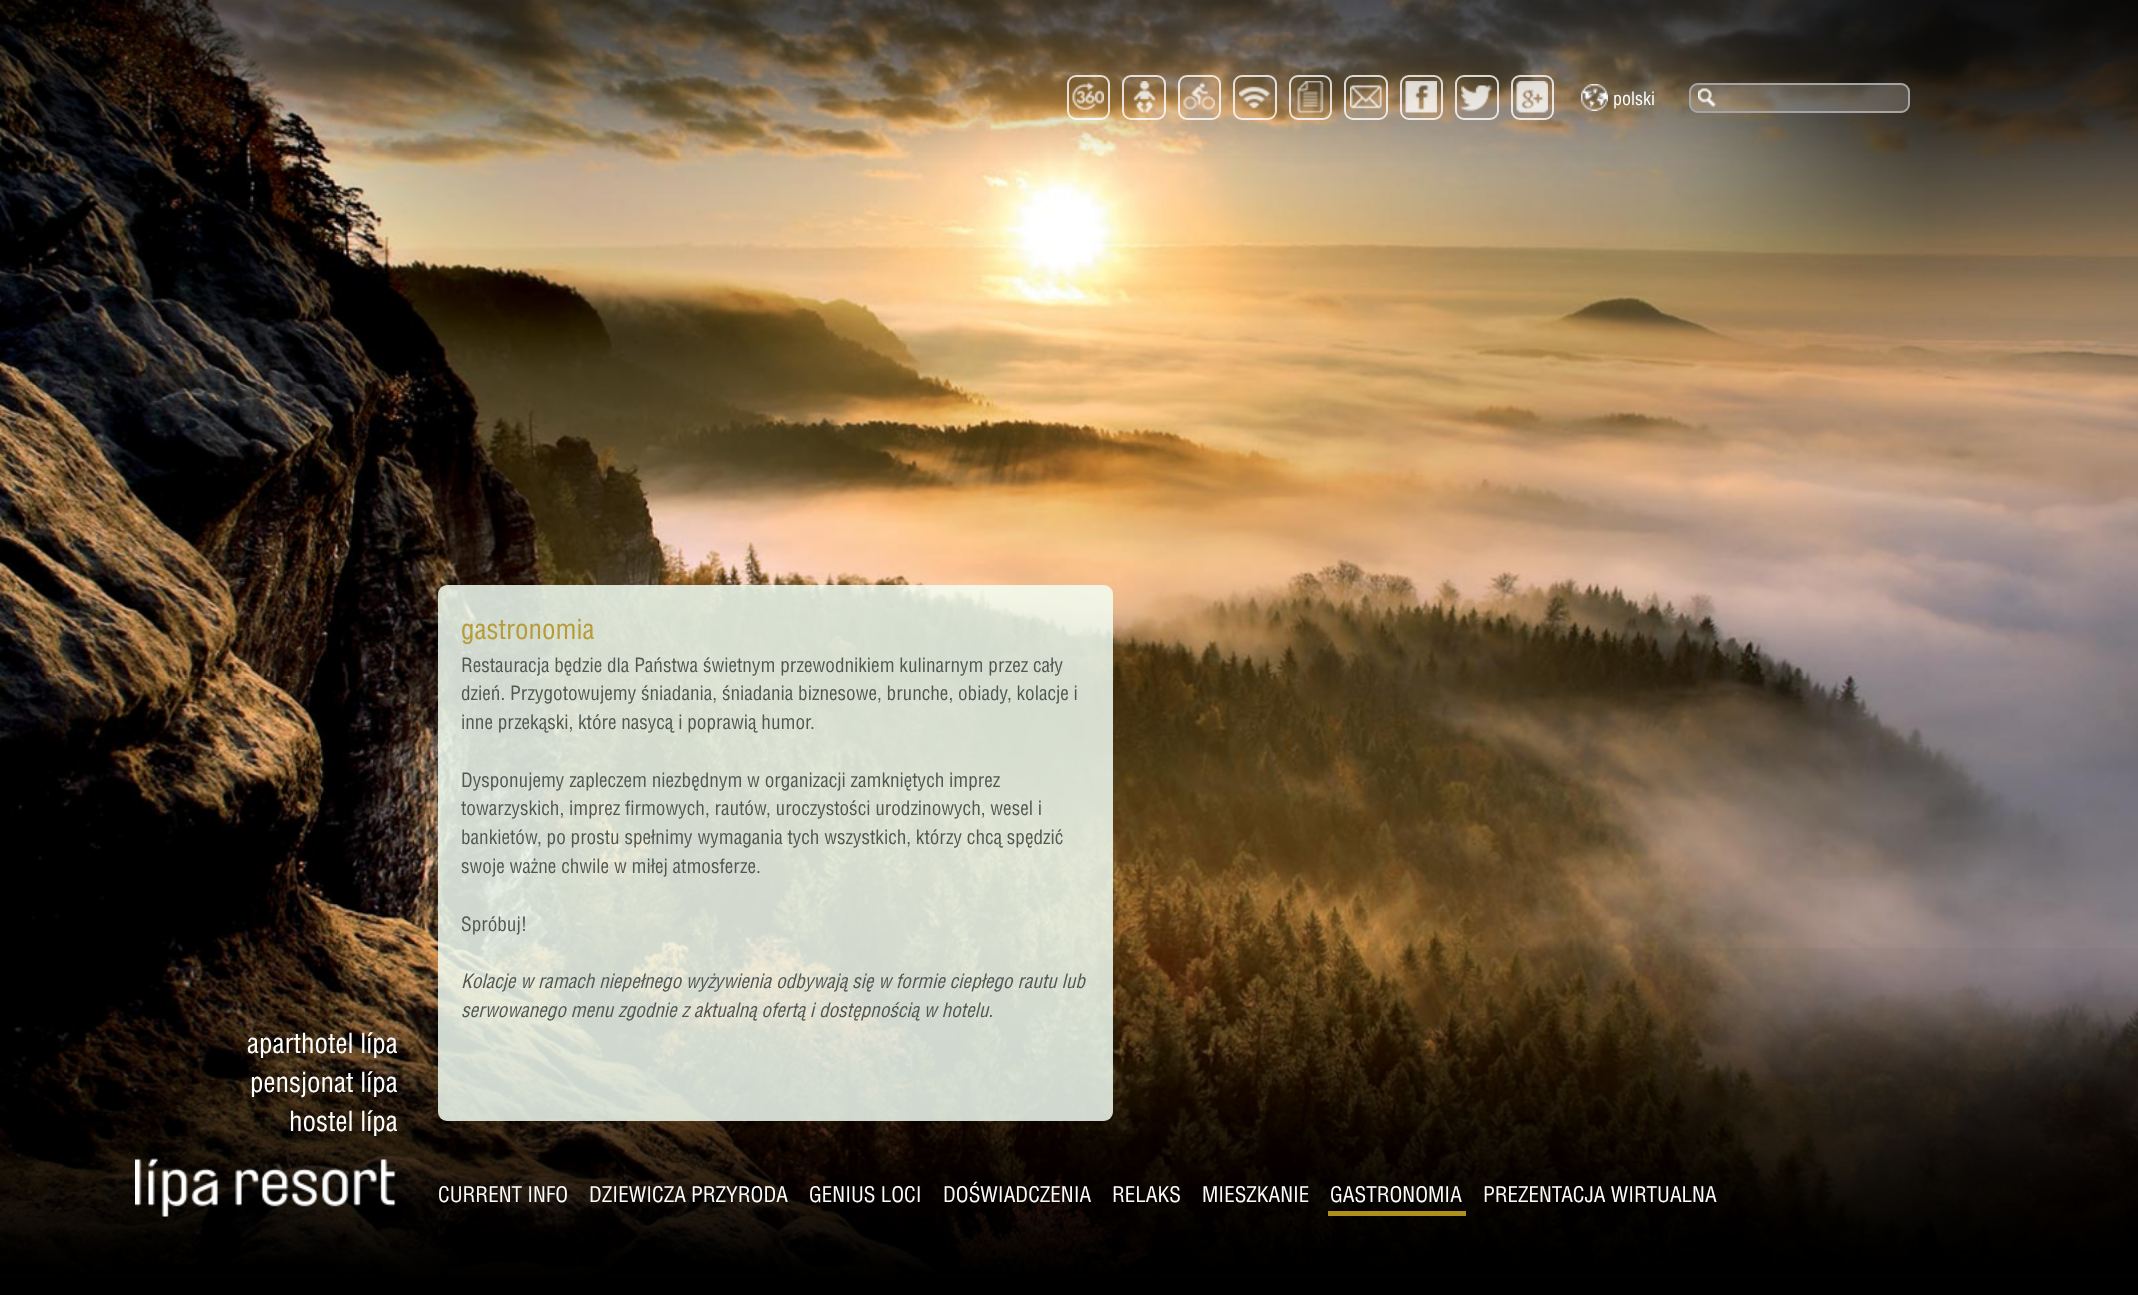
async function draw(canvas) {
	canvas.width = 2138;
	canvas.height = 1295;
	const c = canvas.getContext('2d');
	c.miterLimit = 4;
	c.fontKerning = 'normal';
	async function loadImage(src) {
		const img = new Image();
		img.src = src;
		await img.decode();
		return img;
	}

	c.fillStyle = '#fff';
	c.fillRect(0, 0, 2138, 1295);
	c.drawImage(await loadImage('img1.png'), 0, 0, 2138, 1275);
	c.drawImage(await loadImage('img2.png'), 0, 0, 2138, 344);
	c.beginPath();
	c.roundRect(1068, 76, 41, 43, 8);
	c.strokeStyle = '#ffffffcc';
	c.lineWidth = 2;
	c.stroke();
	c.drawImage(await loadImage('img3.png'), 1072, 82, 32, 28);
	c.beginPath();
	c.roundRect(1123, 76, 42, 43, 8);
	c.stroke();
	c.drawImage(await loadImage('img4.png'), 1133, 81, 23, 32);
	c.beginPath();
	c.roundRect(1179, 76, 41, 43, 8);
	c.stroke();
	c.drawImage(await loadImage('img5.png'), 1183, 82, 32, 28);
	c.beginPath();
	c.roundRect(1234, 76, 42, 43, 8);
	c.stroke();
	c.drawImage(await loadImage('img6.png'), 1239, 86, 32, 23);
	c.beginPath();
	c.roundRect(1290, 76, 41, 43, 8);
	c.stroke();
	c.drawImage(await loadImage('img7.png'), 1297, 81, 27, 32);
	c.beginPath();
	c.roundRect(1345, 76, 42, 43, 8);
	c.stroke();
	c.drawImage(await loadImage('img8.png'), 1350, 85, 32, 24);
	c.beginPath();
	c.roundRect(1401, 76, 41, 43, 8);
	c.stroke();
	c.drawImage(await loadImage('img9.png'), 1405, 81, 32, 32);
	c.beginPath();
	c.roundRect(1456, 76, 42, 43, 8);
	c.stroke();
	c.drawImage(await loadImage('img10.png'), 1461, 85, 32, 27);
	c.beginPath();
	c.roundRect(1512, 76, 41, 43, 8);
	c.stroke();
	c.drawImage(await loadImage('img11.png'), 1516, 81, 32, 32);
	c.drawImage(await loadImage('img12.png'), 1581, 84, 27, 27);
	c.font = '18px "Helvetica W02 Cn"';
	c.fillText('polski', 1613, 105);
	c.fillStyle = '#ffffff33';
	c.beginPath();
	c.roundRect(1689, 83, 221, 30, 9);
	c.fill();
	c.drawImage(await loadImage('img13.png'), 1698, 88, 18, 19);
	c.beginPath();
	c.roundRect(1690, 84, 219, 28, 8);
	c.strokeStyle = '#a4a5a8';
	c.stroke();
	c.drawImage(await loadImage('img14.png'), 0, 948, 2138, 347);
	c.fillStyle = '#f2fef3d9';
	c.beginPath();
	c.roundRect(438, 585, 675, 536, 9);
	c.fill();
	c.font = '27px "Helvetica W02 Cn"';
	c.fillStyle = '#b59c36';
	c.fillText('gastronomia', 461, 639);
	c.font = '19.2px "Helvetica W02 Cn"';
	c.fillStyle = '#535752';
	for (const [text, x, y] of [
		['Restauracja będzie dla Państwa świetnym przewodnikiem kulinarnym przez cały', 461, 672],
		['dzień. Przygotowujemy śniadania, śniadania biznesowe, brunche, obiady, kolacje i', 461, 700],
		['inne przekąski, które nasycą i poprawią humor.', 461, 729],
		['Dysponujemy zapleczem niezbędnym w organizacji zamkniętych imprez', 461, 787],
		['towarzyskich, imprez firmowych, rautów, uroczystości urodzinowych, wesel i', 461, 815],
		['bankietów, po prostu spełnimy wymagania tych wszystkich, którzy chcą spędzić', 461, 844],
		['swoje ważne chwile w miłej atmosferze.', 461, 873],
		['Spróbuj!', 461, 931],
	]) {
		c.fillText(text, x, y);
	}
	c.font = 'italic 19.2px "Helvetica W02 Cn"';
	c.fillText('Kolacje w ramach niepełnego wyżywienia odbywają się w formie ciepłego rautu lub', 461, 988);
	c.fillText('serwowanego menu zgodnie z aktualną ofertą i dostępnością w hotelu.', 461, 1017);
	c.font = '27px "Helvetica W02 Cn"';
	c.fillStyle = '#fff';
	for (const [text, x, y] of [
		['aparthotel lípa', 247, 1053],
		['pensjonat lípa', 250, 1092],
		['hostel lípa', 289, 1131],
	]) {
		c.fillText(text, x, y);
	}
	c.drawImage(await loadImage('img15.png'), 135, 1158, 261, 59);
	c.font = '21px "Helvetica W02 Cn"';
	for (const [text, x, y] of [
		['CURRENT INFO', 438, 1202],
		['DZIEWICZA PRZYRODA', 589, 1202],
		['GENIUS LOCI', 809, 1202],
		['DOŚWIADCZENIA', 943, 1202],
		['RELAKS', 1112, 1202],
		['MIESZKANIE', 1202, 1202],
		['GASTRONOMIA', 1330, 1202],
	]) {
		c.fillText(text, x, y);
	}
	c.fillStyle = '#af901a';
	c.fillRect(1328, 1211, 138, 5);
	c.fillStyle = '#fff';
	c.fillText('PREZENTACJA WIRTUALNA', 1483, 1202);
}

draw(document.querySelector('canvas'));
